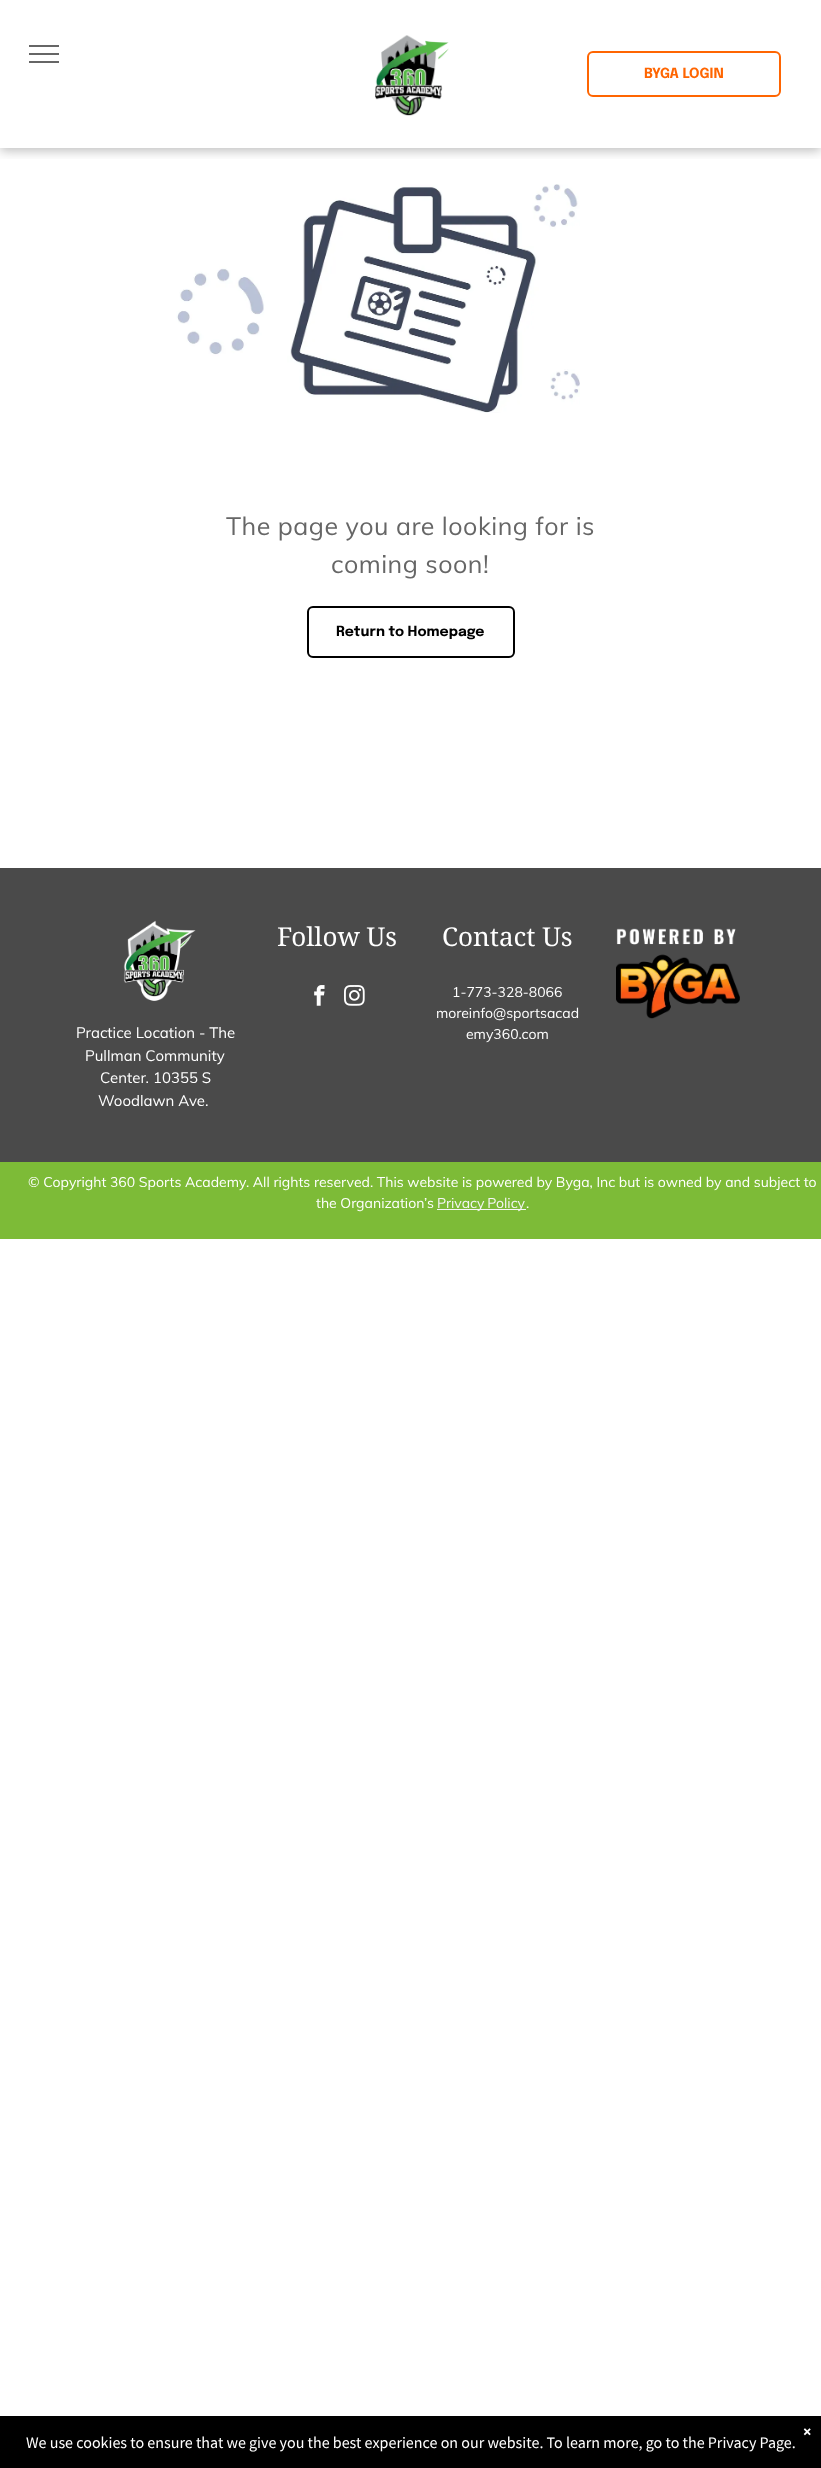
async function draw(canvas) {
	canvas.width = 821;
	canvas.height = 2468;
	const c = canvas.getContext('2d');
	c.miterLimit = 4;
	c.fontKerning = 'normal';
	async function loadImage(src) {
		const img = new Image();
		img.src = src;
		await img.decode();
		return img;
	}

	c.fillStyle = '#fff';
	c.fillRect(0, 0, 821, 2468);
	c.save();
	c.beginPath();
	c.rect(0, 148, 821, 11);
	c.clip();
	c.fillStyle = '#00000040';
	c.filter = 'blur(5.5px)';
	c.beginPath();
	c.rect(0, 3, 821, 148);
	c.fill();
	c.filter = 'none';
	c.restore();
	for (const [x, y, w, h, color] of [
		[29, 45, 30, 2, '#666'],
		[29, 53, 30, 2, '#666'],
		[29, 61, 30, 2, '#666'],
	]) {
		c.fillStyle = color;
		c.fillRect(x, y, w, h);
	}
	c.drawImage(await loadImage('img1.png'), 375, 35, 74, 81);
	c.beginPath();
	c.roundRect(588, 52, 192, 44, 5);
	c.strokeStyle = '#ff6501';
	c.lineWidth = 2;
	c.stroke();
	c.font = 'bold 14px Epilogue';
	c.fillStyle = '#ff6501';
	c.fillText('BYGA LOGIN', 644, 78);
	c.drawImage(await loadImage('img2.png'), 176, 184, 404, 229);
	c.letterSpacing = '0.5px';
	c.font = '25px Muli';
	c.fillStyle = '#666';
	c.fillText('The page you are looking for is', 226, 535);
	c.fillText('coming soon!', 331, 573);
	c.beginPath();
	c.roundRect(308, 607, 206, 50, 5);
	c.strokeStyle = '#000';
	c.stroke();
	c.letterSpacing = '0px';
	c.font = 'bold 14px Epilogue';
	c.fillStyle = '#000';
	c.fillText('Return to Homepage', 336, 636);
	c.fillStyle = '#4a4a4a';
	c.fillRect(0, 868, 821, 294);
	c.font = '26px Droid Serif';
	c.fillStyle = '#fff';
	c.fillText('Follow Us', 277, 946);
	c.drawImage(await loadImage('img3.png'), 314, 985, 11, 21);
	c.drawImage(await loadImage('img4.png'), 344, 985, 21, 21);
	c.fillText('Contact Us', 442, 946);
	c.font = '14px Muli';
	for (const [text, x, y] of [
		['1-773-328-8066', 452, 997],
		['moreinfo@sportsacad', 436, 1018],
		['emy360.com', 466, 1039],
	]) {
		c.fillText(text, x, y);
	}
	c.drawImage(await loadImage('img5.png'), 616, 928, 124, 91);
	c.drawImage(await loadImage('img6.png'), 123, 920, 73, 81);
	c.font = '15px Muli';
	for (const [text, x, y] of [
		['Practice Location - The', 76, 1038],
		['Pullman Community', 85, 1061],
		['Center. 10355 S', 100, 1083],
		['Woodlawn Ave.', 98, 1106],
	]) {
		c.fillText(text, x, y);
	}
	c.fillStyle = '#7dbb37';
	c.fillRect(0, 1162, 821, 77);
	c.font = '14px Muli';
	c.fillStyle = '#fff';
	c.fillText('© Copyright 360 Sports Academy. All rights reserved. This website is powered by Byga, Inc but is owned by and subject to', 28, 1187);
	c.fillText('the Organization’s', 316, 1208);
	c.fillStyle = '#f6f6f6';
	c.fillRect(437, 1209, 89, 1);
	c.wordSpacing = '-1px';
	c.fillText('Privacy Policy', 437, 1208);
	c.wordSpacing = '0px';
	c.fillStyle = '#fff';
	c.fillText('.', 526, 1208);
	c.fillStyle = '#000';
	c.fillRect(0, 2416, 821, 52);
	c.font = 'bold 16px Source Sans Pro';
	c.fillStyle = '#fff';
	c.fillText('×', 803, 2437);
	c.font = '16px Source Sans Pro';
	c.fillText('We use cookies to ensure that we give you the best experience on our website. To learn more, go to the Privacy Page.', 26, 2448);
}

draw(document.querySelector('canvas'));
